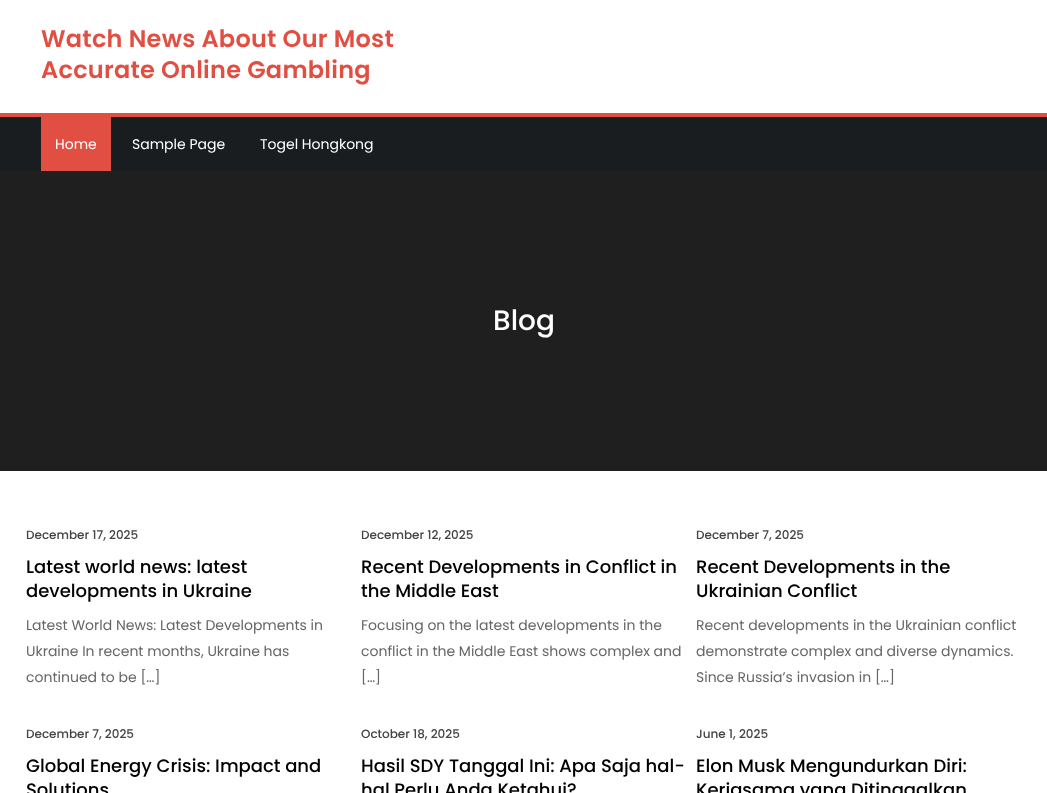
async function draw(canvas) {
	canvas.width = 1047;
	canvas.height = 793;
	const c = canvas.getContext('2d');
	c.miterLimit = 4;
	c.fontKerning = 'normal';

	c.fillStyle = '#fff';
	c.fillRect(0, 0, 1047, 793);
	c.letterSpacing = '0.25px';
	c.font = '600 24px Poppins';
	c.fillStyle = '#e14e42';
	c.fillText('Watch News About Our Most', 41, 47);
	c.fillText('Accurate Online Gambling', 41, 78);
	for (const [x, y, w, h, color] of [
		[0, 117, 1047, 54, '#1a1d20'],
		[0, 113, 1047, 4, '#e14e42'],
		[41, 117, 70, 54, '#e14e42'],
	]) {
		c.fillStyle = color;
		c.fillRect(x, y, w, h);
	}
	c.letterSpacing = '0px';
	c.font = '14px Poppins';
	c.fillStyle = '#fff';
	for (const [text, x, y] of [
		['Home', 55, 149],
		['Sample Page', 132, 149],
		['Togel Hongkong', 260, 149],
	]) {
		c.fillText(text, x, y);
	}
	c.fillStyle = '#1f1f1f';
	c.fillRect(0, 171, 1047, 300);
	c.font = '500 28px Poppins';
	c.fillStyle = '#fff';
	c.fillText('Blog', 493, 330);
	c.font = '500 12px Poppins';
	c.fillStyle = '#444';
	c.fillText('December 17, 2025', 26, 539);
	c.font = '500 18px Poppins';
	c.fillStyle = '#000';
	c.fillText('Latest world news: latest', 26, 573);
	c.fillText('developments in Ukraine', 26, 597);
	c.font = '14px Poppins';
	c.fillStyle = '#666';
	for (const [text, x, y] of [
		['Latest World News: Latest Developments in', 26, 630],
		['Ukraine In recent months, Ukraine has', 26, 656],
		['continued to be […]', 26, 682],
	]) {
		c.fillText(text, x, y);
	}
	c.font = '500 12px Poppins';
	c.fillStyle = '#444';
	c.fillText('December 12, 2025', 361, 539);
	c.font = '500 18px Poppins';
	c.fillStyle = '#000';
	c.fillText('Recent Developments in Conflict in', 361, 573);
	c.fillText('the Middle East', 361, 597);
	c.font = '14px Poppins';
	c.fillStyle = '#666';
	for (const [text, x, y] of [
		['Focusing on the latest developments in the', 361, 630],
		['conflict in the Middle East shows complex and', 361, 656],
		['[…]', 361, 682],
	]) {
		c.fillText(text, x, y);
	}
	c.font = '500 12px Poppins';
	c.fillStyle = '#444';
	c.fillText('December 7, 2025', 696, 539);
	c.font = '500 18px Poppins';
	c.fillStyle = '#000';
	c.fillText('Recent Developments in the', 696, 573);
	c.fillText('Ukrainian Conflict', 696, 597);
	c.font = '14px Poppins';
	c.fillStyle = '#666';
	for (const [text, x, y] of [
		['Recent developments in the Ukrainian conflict', 696, 630],
		['demonstrate complex and diverse dynamics.', 696, 656],
		['Since Russia’s invasion in […]', 696, 682],
	]) {
		c.fillText(text, x, y);
	}
	c.font = '500 12px Poppins';
	c.fillStyle = '#444';
	c.fillText('December 7, 2025', 26, 738);
	c.font = '500 18px Poppins';
	c.fillStyle = '#000';
	c.fillText('Global Energy Crisis: Impact and', 26, 772);
	c.fillText('Solutions', 26, 796);
	c.font = '500 12px Poppins';
	c.fillStyle = '#444';
	c.fillText('October 18, 2025', 361, 738);
	c.font = '500 18px Poppins';
	c.fillStyle = '#000';
	c.fillText('Hasil SDY Tanggal Ini: Apa Saja hal-', 361, 772);
	c.fillText('hal Perlu Anda Ketahui?', 361, 796);
	c.font = '500 12px Poppins';
	c.fillStyle = '#444';
	c.fillText('June 1, 2025', 696, 738);
	c.font = '500 18px Poppins';
	c.fillStyle = '#000';
	c.fillText('Elon Musk Mengundurkan Diri:', 696, 772);
	c.fillText('Kerjasama yang Ditinggalkan', 696, 796);
}

draw(document.querySelector('canvas'));
